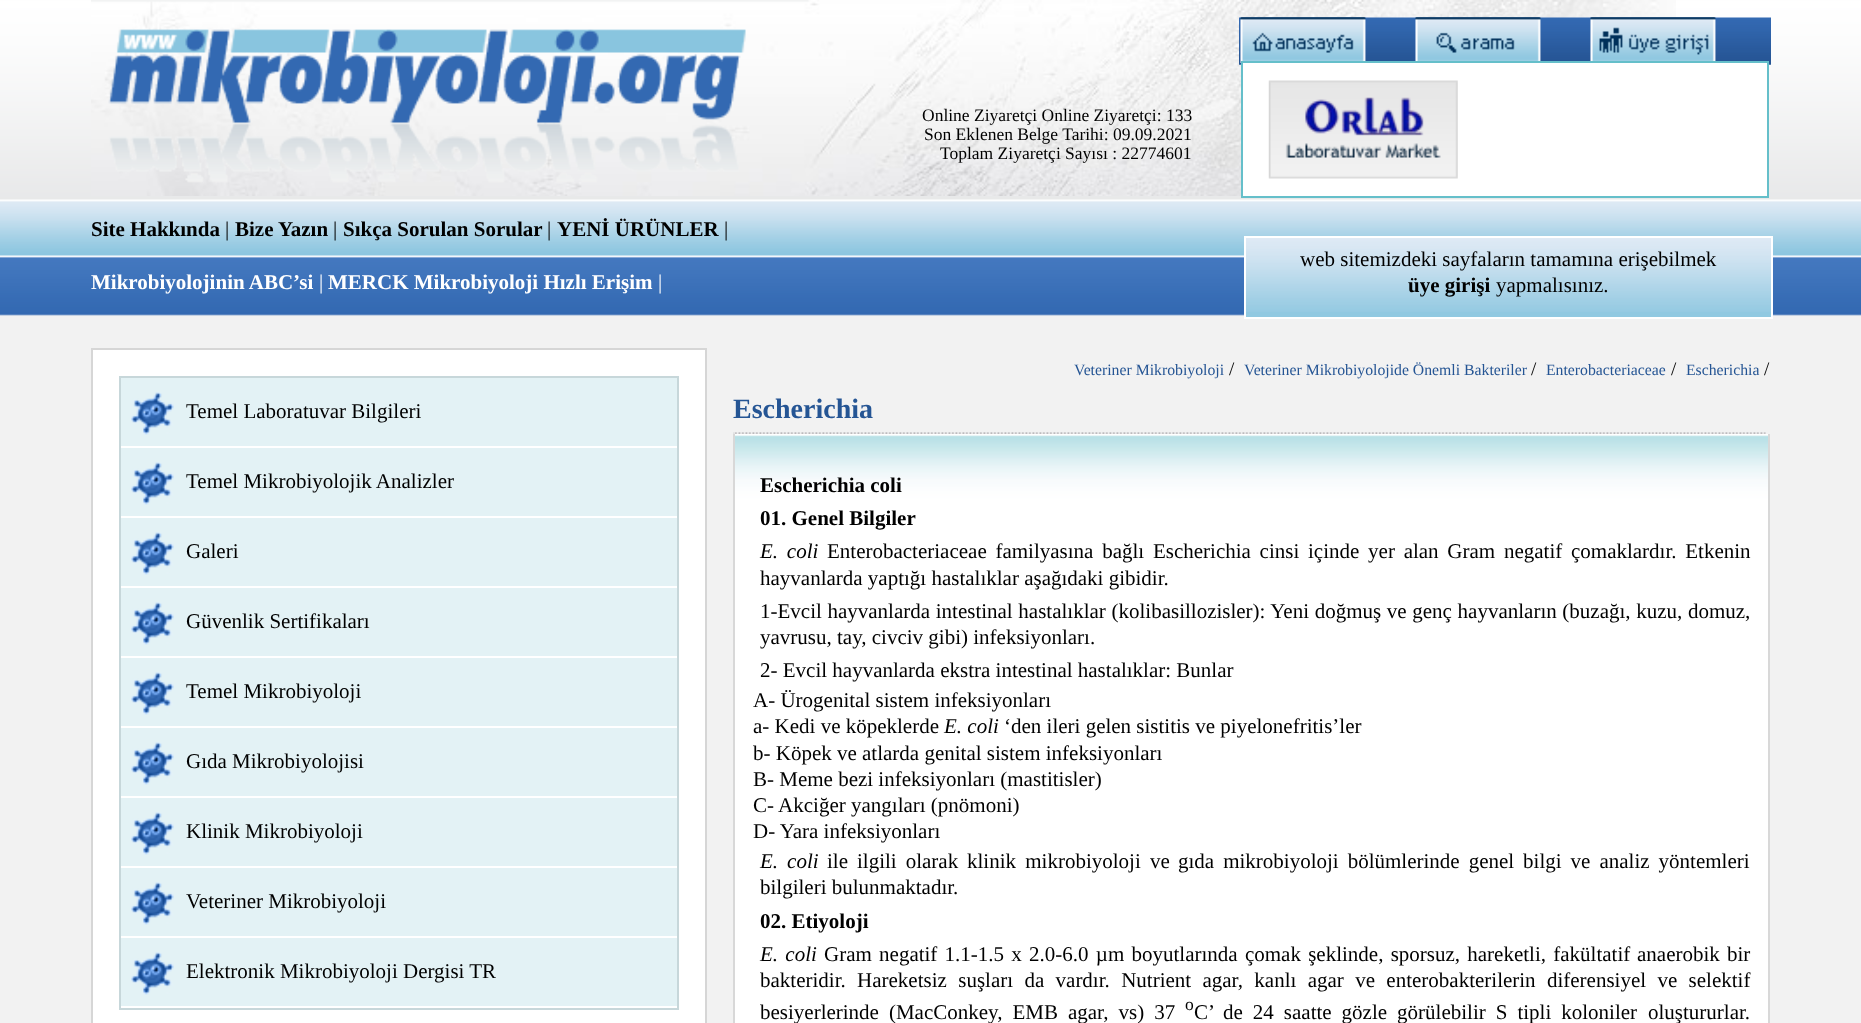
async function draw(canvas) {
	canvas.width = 1861;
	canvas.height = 1023;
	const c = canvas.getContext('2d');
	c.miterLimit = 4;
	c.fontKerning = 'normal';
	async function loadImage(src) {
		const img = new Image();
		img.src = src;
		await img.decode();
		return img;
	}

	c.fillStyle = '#f2f2f2';
	c.fillRect(0, 0, 1861, 1023);
	c.drawImage(await loadImage('img1.png'), 0, 0, 1861, 316);
	c.drawImage(await loadImage('img2.png'), 91, 0, 1585, 196);
	c.drawImage(await loadImage('img3.png'), 91, 0, 718, 183);
	c.drawImage(await loadImage('img4.png'), 1239, 17, 532, 48);
	c.drawImage(await loadImage('img5.png'), 1240, 17, 126, 46);
	c.drawImage(await loadImage('img6.png'), 1240, 17, 126, 46);
	c.drawImage(await loadImage('img7.png'), 1415, 17, 126, 44);
	c.drawImage(await loadImage('img8.png'), 1415, 17, 126, 44);
	c.drawImage(await loadImage('img9.png'), 1590, 17, 126, 44);
	c.drawImage(await loadImage('img10.png'), 1590, 17, 126, 44);
	c.font = '17.5px Liberation Serif';
	c.fillStyle = '#000';
	for (const [text, x, y] of [
		['Online Ziyaretçi Online Ziyaretçi: 133', 922, 121],
		['Son Eklenen Belge Tarihi: 09.09.2021', 924, 140],
		['Toplam Ziyaretçi Sayısı : 22774601', 940, 159],
	]) {
		c.fillText(text, x, y);
	}
	c.fillStyle = '#fff';
	c.beginPath();
	c.rect(1242, 62, 526, 135);
	c.fill();
	c.strokeStyle = '#65bfca';
	c.lineWidth = 2;
	c.stroke();
	c.drawImage(await loadImage('img11.png'), 1268, 80, 190, 99);
	c.fillStyle = '#91c9e1';
	c.fillRect(1246, 312, 525, 5);
	c.drawImage(await loadImage('img12.png'), 1246, 238, 525, 74);
	c.strokeStyle = '#fff';
	c.strokeRect(1245, 237, 527, 81);
	c.font = '21px Liberation Serif';
	c.fillStyle = '#000';
	c.fillText('web sitemizdeki sayfaların tamamına erişebilmek', 1300, 266);
	c.font = 'bold 21px Liberation Serif';
	c.fillText('üye girişi', 1408, 292);
	c.font = '21px Liberation Serif';
	c.fillText('yapmalısınız.', 1496, 292);
	c.font = 'bold 21px Liberation Serif';
	c.fillText('Site Hakkında', 91, 236);
	c.font = '21px Liberation Serif';
	c.fillText('|', 225, 236);
	c.font = 'bold 21px Liberation Serif';
	c.fillText('Bize Yazın', 235, 236);
	c.font = '21px Liberation Serif';
	c.fillText('|', 333, 236);
	c.font = 'bold 21px Liberation Serif';
	c.fillText('Sıkça Sorulan Sorular', 343, 236);
	c.font = '21px Liberation Serif';
	c.fillText('|', 547, 236);
	c.font = 'bold 21px Liberation Serif';
	c.fillText('YENİ ÜRÜNLER', 557, 236);
	c.font = '21px Liberation Serif';
	c.fillText('|', 724, 236);
	c.font = 'bold 21px Liberation Serif';
	c.fillStyle = '#fff';
	c.fillText('Mikrobiyolojinin ABC’si', 91, 289);
	c.font = '21px Liberation Serif';
	c.fillText('|', 319, 289);
	c.font = 'bold 21px Liberation Serif';
	c.fillText('MERCK Mikrobiyoloji Hızlı Erişim', 328, 289);
	c.font = '21px Liberation Serif';
	c.fillText('|', 658, 289);
	c.beginPath();
	c.rect(92, 349, 614, 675);
	c.fill();
	c.strokeStyle = '#d6d6d6';
	c.stroke();
	c.strokeStyle = '#c7d7da';
	c.strokeRect(120, 377, 558, 632);
	c.fillStyle = '#e3f2f5';
	c.fillRect(121, 378, 556, 68);
	c.drawImage(await loadImage('img13.png'), 131, 392, 43, 43);
	c.fillStyle = '#000';
	c.fillText('Temel Laboratuvar Bilgileri', 186, 418);
	c.fillStyle = '#e3f2f5';
	c.fillRect(121, 448, 556, 68);
	c.drawImage(await loadImage('img13.png'), 131, 462, 43, 43);
	c.fillStyle = '#000';
	c.fillText('Temel Mikrobiyolojik Analizler', 186, 488);
	c.fillStyle = '#e3f2f5';
	c.fillRect(121, 518, 556, 68);
	c.drawImage(await loadImage('img13.png'), 131, 532, 43, 43);
	c.fillStyle = '#000';
	c.fillText('Galeri', 186, 558);
	c.fillStyle = '#e3f2f5';
	c.fillRect(121, 588, 556, 68);
	c.drawImage(await loadImage('img13.png'), 131, 602, 43, 43);
	c.fillStyle = '#000';
	c.fillText('Güvenlik Sertifikaları', 186, 628);
	c.fillStyle = '#e3f2f5';
	c.fillRect(121, 658, 556, 68);
	c.drawImage(await loadImage('img13.png'), 131, 672, 43, 43);
	c.fillStyle = '#000';
	c.fillText('Temel Mikrobiyoloji', 186, 698);
	c.fillStyle = '#e3f2f5';
	c.fillRect(121, 728, 556, 68);
	c.drawImage(await loadImage('img13.png'), 131, 742, 43, 43);
	c.fillStyle = '#000';
	c.fillText('Gıda Mikrobiyolojisi', 186, 768);
	c.fillStyle = '#e3f2f5';
	c.fillRect(121, 798, 556, 68);
	c.drawImage(await loadImage('img13.png'), 131, 812, 43, 43);
	c.fillStyle = '#000';
	c.fillText('Klinik Mikrobiyoloji', 186, 838);
	c.fillStyle = '#e3f2f5';
	c.fillRect(121, 868, 556, 68);
	c.drawImage(await loadImage('img13.png'), 131, 882, 43, 43);
	c.fillStyle = '#000';
	c.fillText('Veteriner Mikrobiyoloji', 186, 908);
	c.fillStyle = '#e3f2f5';
	c.fillRect(121, 938, 556, 68);
	c.drawImage(await loadImage('img13.png'), 131, 952, 43, 43);
	c.fillStyle = '#000';
	c.fillText('Elektronik Mikrobiyoloji Dergisi TR', 186, 978);
	c.font = '15.75px Liberation Serif';
	c.fillStyle = '#255594';
	c.fillText('Veteriner Mikrobiyoloji', 1074, 375);
	c.font = '19px Liberation Serif';
	c.fillStyle = '#000';
	c.fillText('/', 1229, 375);
	c.font = '15.75px Liberation Serif';
	c.fillStyle = '#255594';
	c.fillText('Veteriner Mikrobiyolojide Önemli Bakteriler', 1244, 375);
	c.font = '19px Liberation Serif';
	c.fillStyle = '#000';
	c.fillText('/', 1531, 375);
	c.font = '15.75px Liberation Serif';
	c.fillStyle = '#255594';
	c.fillText('Enterobacteriaceae', 1546, 375);
	c.font = '19px Liberation Serif';
	c.fillStyle = '#000';
	c.fillText('/', 1671, 375);
	c.font = '15.75px Liberation Serif';
	c.fillStyle = '#255594';
	c.fillText('Escherichia', 1686, 375);
	c.font = '19px Liberation Serif';
	c.fillStyle = '#000';
	c.fillText('/', 1764, 375);
	c.drawImage(await loadImage('img14.png'), 733, 432, 1033, 2);
	c.font = 'bold 28px Liberation Serif';
	c.fillStyle = '#255594';
	c.fillText('Escherichia', 733, 418);
	c.fillStyle = '#fff';
	c.fillRect(735, 434, 1033, 589);
	c.drawImage(await loadImage('img15.png'), 735, 435, 1033, 64);
	c.fillStyle = '#d8d8d8';
	c.fillRect(1768, 434, 2, 589);
	c.fillRect(733, 434, 2, 589);
	c.font = 'bold 21px Liberation Serif';
	c.fillStyle = '#000';
	c.fillText('Escherichia coli', 760, 492);
	c.fillText('01. Genel Bilgiler', 760, 525);
	c.wordSpacing = '3.5px';
	c.font = 'italic 21px Liberation Serif';
	c.fillText('E. coli', 760, 558);
	c.font = '21px Liberation Serif';
	c.fillText('Enterobacteriaceae familyasına bağlı Escherichia cinsi içinde yer alan Gram negatif çomaklardır. Etkenin', 827, 558);
	c.wordSpacing = '0px';
	c.fillText('hayvanlarda yaptığı hastalıklar aşağıdaki gibidir.', 760, 585);
	c.wordSpacing = '0.4px';
	c.fillText('1-Evcil hayvanlarda intestinal hastalıklar (kolibasillozisler): Yeni doğmuş ve genç hayvanların (buzağı, kuzu, domuz,', 760, 618);
	c.wordSpacing = '0px';
	for (const [text, x, y] of [
		['yavrusu, tay, civciv gibi) infeksiyonları.', 760, 644],
		['2- Evcil hayvanlarda ekstra intestinal hastalıklar: Bunlar', 760, 677],
		['A- Ürogenital sistem infeksiyonları', 753, 707],
		['a- Kedi ve köpeklerde', 753, 733],
	]) {
		c.fillText(text, x, y);
	}
	c.font = 'italic 21px Liberation Serif';
	c.fillText('E. coli', 944, 733);
	c.font = '21px Liberation Serif';
	for (const [text, x, y] of [
		['‘den ileri gelen sistitis ve piyelonefritis’ler', 1004, 733],
		['b- Köpek ve atlarda genital sistem infeksiyonları', 753, 760],
		['B- Meme bezi infeksiyonları (mastitisler)', 753, 786],
		['C- Akciğer yangıları (pnömoni)', 753, 812],
		['D- Yara infeksiyonları', 753, 838],
	]) {
		c.fillText(text, x, y);
	}
	c.wordSpacing = '3.75px';
	c.font = 'italic 21px Liberation Serif';
	c.fillText('E. coli', 760, 868);
	c.font = '21px Liberation Serif';
	c.fillText('ile ilgili olarak', 827, 868);
	c.wordSpacing = '4px';
	c.fillText('klinik mikrobiyoloji ve', 967, 868);
	c.wordSpacing = '3.75px';
	c.fillText('gıda mikrobiyoloji bölümlerinde genel bilgi ve analiz yöntemleri', 1178, 868);
	c.wordSpacing = '0px';
	c.fillText('bilgileri bulunmaktadır.', 760, 894);
	c.font = 'bold 21px Liberation Serif';
	c.fillText('02. Etiyoloji', 760, 928);
	c.wordSpacing = '2px';
	c.font = 'italic 21px Liberation Serif';
	c.fillText('E. coli', 760, 961);
	c.font = '21px Liberation Serif';
	c.fillText('Gram negatif 1.1-1.5 x 2.0-6.0 µm boyutlarında çomak şeklinde, sporsuz, hareketli, fakültatif', 824, 961);
	c.fillText('anaerobik bir', 1637, 961);
	c.wordSpacing = '6.1px';
	c.fillText('bakteridir. Hareketsiz suşları da vardır. Nutrient agar, kanlı agar ve enterobakterilerin diferensiyel ve selektif', 760, 987);
	c.wordSpacing = '4.75px';
	c.fillText('besiyerlerinde (MacConkey, EMB agar, vs) 37', 760, 1019);
	c.wordSpacing = '0px';
	c.font = '17.5px Liberation Serif';
	c.fillText('o', 1185, 1010);
	c.font = '21px Liberation Serif';
	c.fillText('C’', 1194, 1019);
	c.wordSpacing = '4.75px';
	c.fillText('de 24 saatte gözle görülebilir S tipli koloniler', 1223, 1019);
	c.wordSpacing = '0px';
	c.fillText('oluştururlar.', 1648, 1019);
}

draw(document.querySelector('canvas'));
